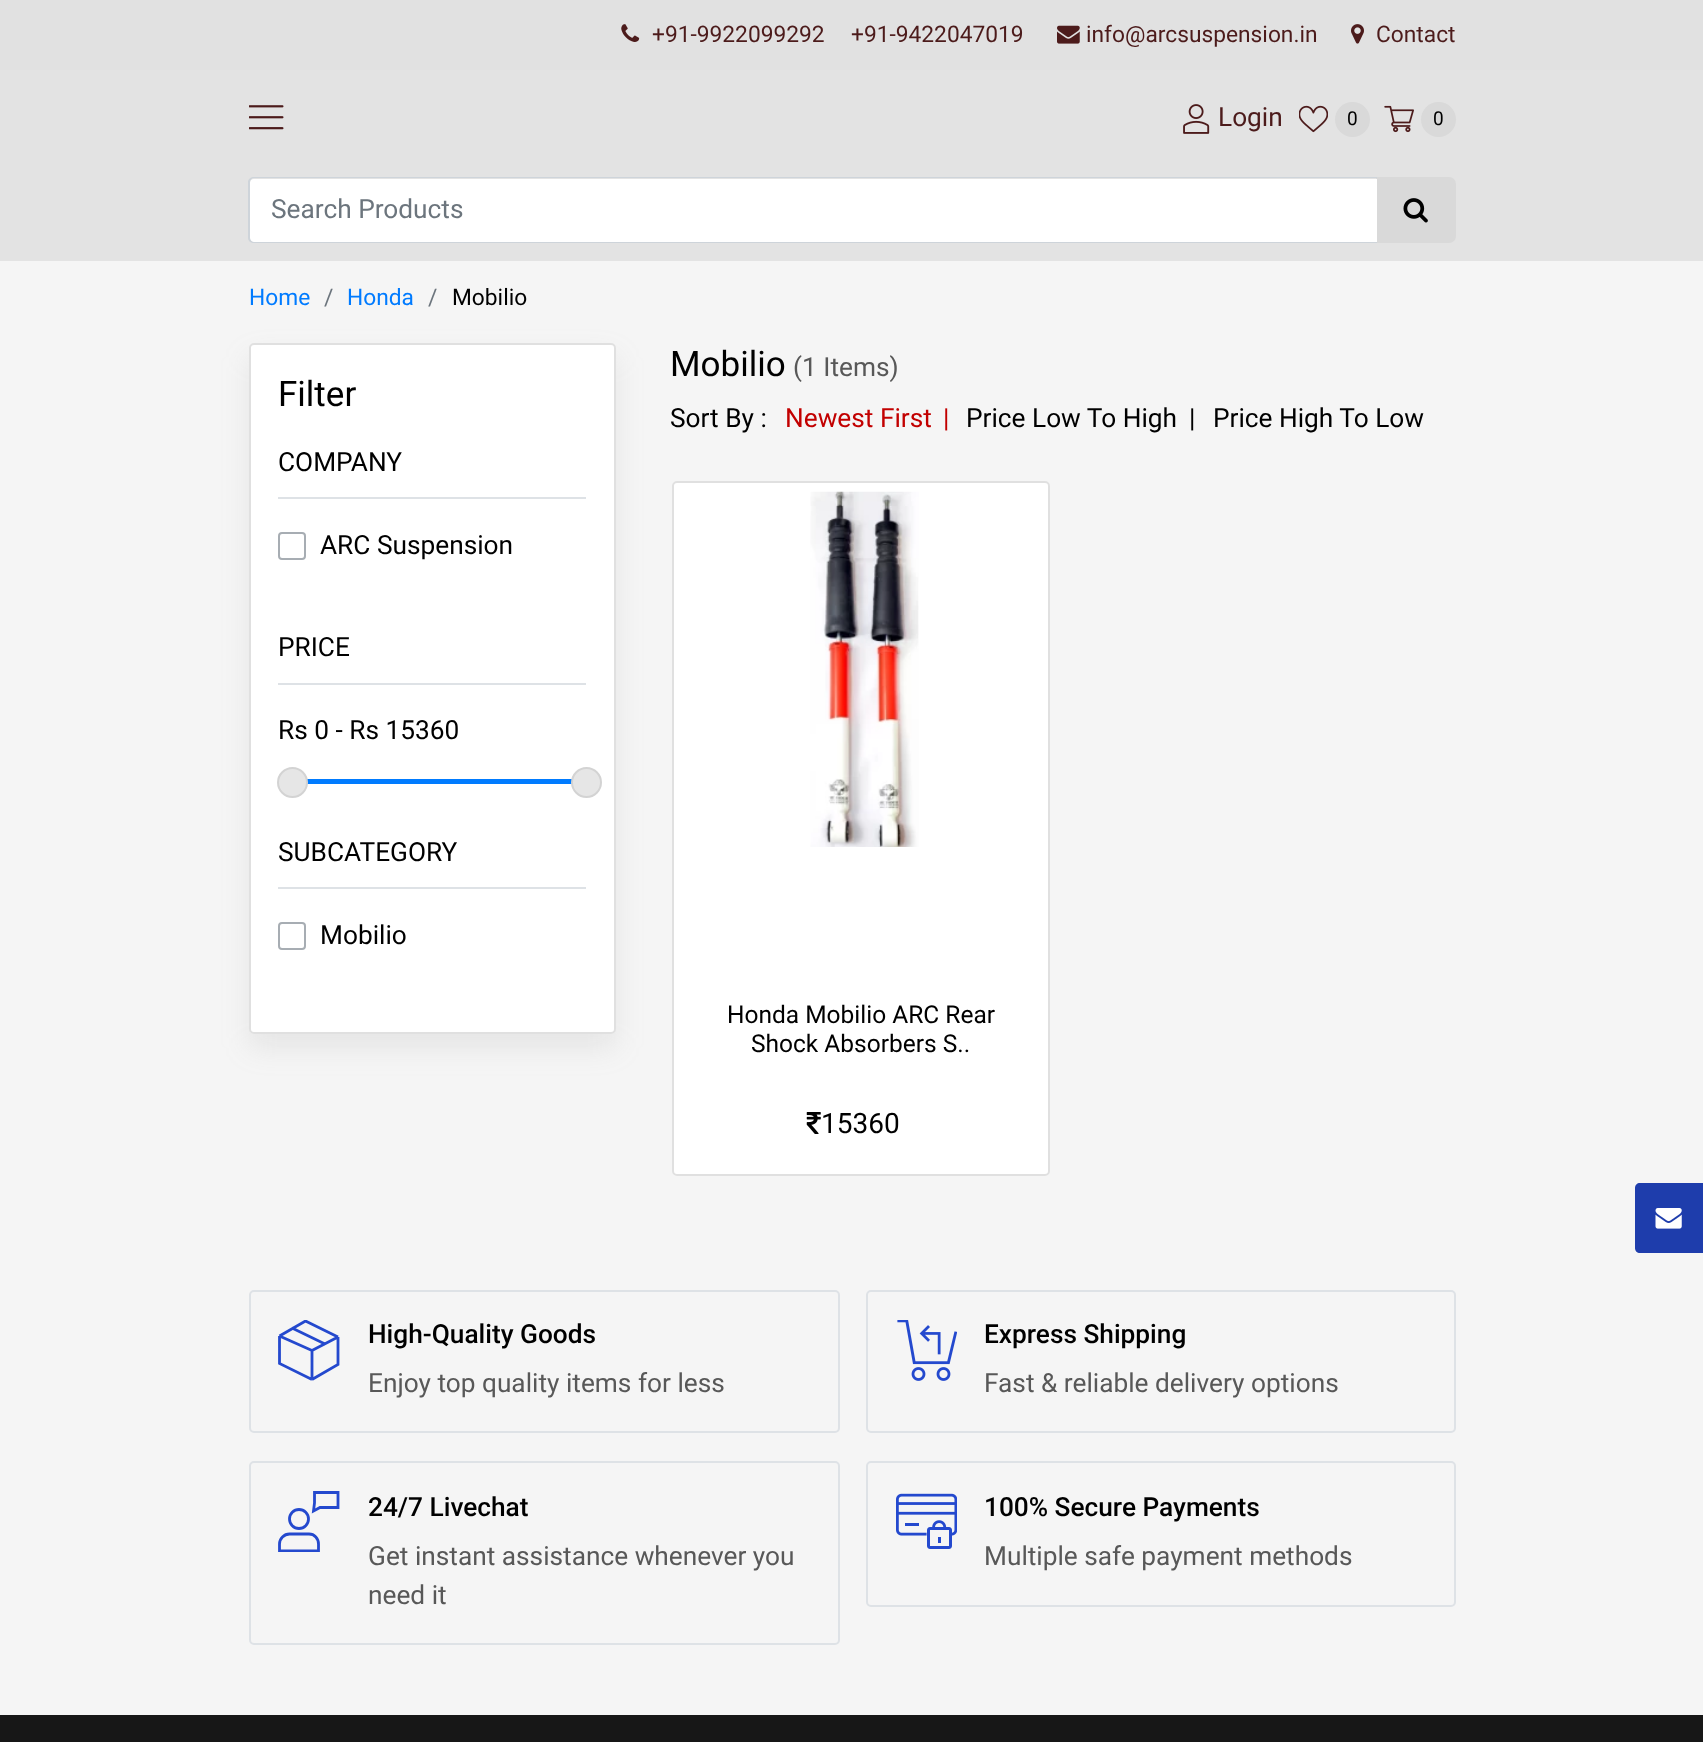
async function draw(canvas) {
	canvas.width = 1703;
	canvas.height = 1742;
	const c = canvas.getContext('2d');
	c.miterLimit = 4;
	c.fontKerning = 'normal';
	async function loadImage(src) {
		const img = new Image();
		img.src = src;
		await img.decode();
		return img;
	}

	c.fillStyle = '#f5f5f5';
	c.fillRect(0, 0, 1703, 1742);
	c.fillStyle = '#e1e1e1';
	c.fillRect(0, 0, 1703, 70);
	c.drawImage(await loadImage('img1.png'), 621, 24, 19, 18);
	c.font = '22.75px Roboto';
	c.fillStyle = '#4c1b1b';
	c.fillText('+91-9922099292', 652, 42);
	c.fillText('+91-9422047019', 851, 42);
	c.drawImage(await loadImage('img2.png'), 1057, 25, 23, 19);
	c.fillText('info@arcsuspension.in', 1086, 42);
	c.drawImage(await loadImage('img3.png'), 1351, 24, 13, 20);
	c.fillText('Contact', 1376, 42);
	c.fillStyle = '#e3e3e3';
	c.fillRect(0, 70, 1703, 191);
	c.drawImage(await loadImage('img4.png'), 249, 105, 35, 25);
	c.drawImage(await loadImage('img5.png'), 1183, 104, 27, 30);
	c.font = '26.25px Roboto';
	c.fillStyle = '#4c1b1b';
	c.fillText('Login', 1218, 126);
	c.drawImage(await loadImage('img6.png'), 1299, 105, 29, 28);
	c.fillStyle = '#d9d9d9';
	c.beginPath();
	c.arc(1352.5, 119.5, 17.5, 0, 2 * Math.PI);
	c.fill();
	c.font = '19px Roboto';
	c.fillStyle = '#000';
	c.fillText('0', 1347, 125);
	c.drawImage(await loadImage('img7.png'), 1384, 105, 30, 28);
	c.fillStyle = '#d9d9d9';
	c.beginPath();
	c.arc(1438.5, 119.5, 17.5, 0, 2 * Math.PI);
	c.fill();
	c.fillStyle = '#000';
	c.fillText('0', 1433, 125);
	c.fillStyle = '#d9d9d9';
	c.beginPath();
	c.roundRect(1376, 177, 80, 66, [0, 7, 7, 0]);
	c.fill();
	c.fillStyle = '#fff';
	c.beginPath();
	c.roundRect(250, 179, 1127, 63, [4, 0, 0, 4]);
	c.fill();
	c.fillStyle = '#ced4da';
	c.beginPath();
	c.moveTo(254, 177);
	c.lineTo(1377, 177);
	c.lineTo(1377, 243);
	c.lineTo(254, 243);
	c.bezierCurveTo(251, 243, 248, 241, 248, 238);
	c.lineTo(248, 182);
	c.bezierCurveTo(248, 179, 251, 177, 254, 177);
	c.closePath();
	c.moveTo(254, 178);
	c.lineTo(1377, 178);
	c.lineTo(1377, 242);
	c.lineTo(254, 242);
	c.bezierCurveTo(252, 242, 250, 240, 250, 238);
	c.lineTo(250, 182);
	c.bezierCurveTo(250, 180, 252, 178, 254, 178);
	c.closePath();
	c.fill('evenodd');
	c.font = '26.25px Roboto';
	c.fillStyle = '#6c757d';
	c.fillText('Search Products', 271, 218);
	c.drawImage(await loadImage('img8.png'), 1403, 198, 25, 25);
	c.font = '22.75px Roboto';
	c.fillStyle = '#007bff';
	c.fillText('Home', 249, 305);
	c.fillStyle = '#6c757d';
	c.fillText('/', 324, 305);
	c.fillStyle = '#007bff';
	c.fillText('Honda', 347, 305);
	c.fillStyle = '#6c757d';
	c.fillText('/', 428, 305);
	c.fillStyle = '#000';
	c.fillText('Mobilio', 452, 305);
	c.fillStyle = '#8c8c8c26';
	c.filter = 'blur(14px)';
	c.beginPath();
	c.roundRect(249, 357, 367, 691, 5);
	c.fill();
	c.filter = 'none';
	c.fillStyle = '#fff';
	c.beginPath();
	c.roundRect(249, 343, 367, 691, 5);
	c.fill();
	c.beginPath();
	c.roundRect(250, 344, 365, 689, 4);
	c.strokeStyle = '#0000001f';
	c.lineWidth = 2;
	c.stroke();
	c.font = '35px Roboto';
	c.fillStyle = '#000';
	c.fillText('Filter', 278, 406);
	c.fillStyle = '#dee2e6';
	c.fillRect(278, 497, 308, 2);
	c.font = '26.25px Roboto';
	c.fillStyle = '#000';
	c.fillText('COMPANY', 278, 471);
	c.beginPath();
	c.roundRect(279, 533, 26, 26, 3);
	c.strokeStyle = '#a7adb3';
	c.stroke();
	c.fillText('ARC Suspension', 320, 554);
	c.fillStyle = '#dee2e6';
	c.fillRect(278, 683, 308, 2);
	c.fillStyle = '#000';
	c.fillText('PRICE', 278, 656);
	c.fillText('Rs 0 - Rs 15360', 278, 739);
	c.fillStyle = '#007bff';
	c.fillRect(307, 779, 265, 5);
	c.fillStyle = '#e6e6e6';
	c.beginPath();
	c.arc(292.5, 782.5, 14.5, 0, 2 * Math.PI);
	c.fill();
	c.strokeStyle = '#d3d3d3';
	c.stroke();
	c.beginPath();
	c.arc(586.5, 782.5, 14.5, 0, 2 * Math.PI);
	c.fill();
	c.stroke();
	c.fillStyle = '#dee2e6';
	c.fillRect(278, 887, 308, 2);
	c.fillStyle = '#000';
	c.fillText('SUBCATEGORY', 278, 861);
	c.beginPath();
	c.roundRect(279, 923, 26, 26, 3);
	c.strokeStyle = '#a7adb3';
	c.stroke();
	c.fillText('Mobilio', 320, 944);
	c.font = '35px Roboto';
	c.fillText('Mobilio', 670, 376);
	c.font = '26.25px Roboto';
	c.fillStyle = '#585858';
	c.fillText('(1 Items)', 793, 376);
	c.fillStyle = '#000';
	c.fillText('Sort By :', 670, 427);
	c.fillStyle = '#c20000';
	c.fillText('Newest First', 785, 427);
	c.fillText('|', 943, 427);
	c.fillStyle = '#000';
	for (const [text, x, y] of [
		['Price Low To High', 966, 427],
		['|', 1189, 427],
		['Price High To Low', 1213, 427],
	]) {
		c.fillText(text, x, y);
	}
	c.fillStyle = '#fff';
	c.beginPath();
	c.roundRect(672, 481, 378, 695, 5);
	c.fill();
	c.beginPath();
	c.roundRect(673, 482, 376, 693, 4);
	c.strokeStyle = '#0000001f';
	c.stroke();
	c.drawImage(await loadImage('img9.png'), 810, 491, 109, 356);
	c.font = '24.5px Roboto';
	c.fillStyle = '#000';
	c.fillText('Honda Mobilio ARC Rear', 727, 1023);
	c.fillText('Shock Absorbers S..', 751, 1052);
	c.drawImage(await loadImage('img10.png'), 806, 1112, 15, 22);
	c.font = '28px Roboto';
	c.fillText('15360', 821, 1133);
	c.fillStyle = '#1e3dac';
	c.beginPath();
	c.moveTo(1640, 1183);
	c.lineTo(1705, 1183);
	c.lineTo(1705, 1253);
	c.lineTo(1640, 1253);
	c.bezierCurveTo(1637, 1253, 1635, 1251, 1635, 1248);
	c.lineTo(1635, 1188);
	c.bezierCurveTo(1635, 1185, 1637, 1183, 1640, 1183);
	c.closePath();
	c.fill();
	c.drawImage(await loadImage('img11.png'), 1655, 1208, 27, 21);
	c.beginPath();
	c.roundRect(250, 1291, 589, 141, 4);
	c.strokeStyle = '#dee2e6';
	c.stroke();
	c.beginPath();
	c.moveTo(292, 1328);
	c.lineTo(325, 1344);
	c.strokeStyle = '#2449ce';
	c.lineWidth = 2.8;
	c.stroke();
	c.save();
	c.beginPath();
	c.rect(278, 1320, 62, 61);
	c.clip();
	c.beginPath();
	c.moveTo(338, 1337);
	c.lineTo(305.5, 1321);
	c.lineTo(279.5, 1336);
	c.moveTo(338, 1337);
	c.lineTo(338, 1364.5);
	c.lineTo(312, 1379.5);
	c.moveTo(338, 1337);
	c.lineTo(312, 1350.5);
	c.moveTo(312, 1379.5);
	c.lineTo(279.5, 1363.5);
	c.lineTo(279.5, 1336);
	c.moveTo(312, 1379.5);
	c.lineTo(312, 1350.5);
	c.moveTo(279.5, 1336);
	c.lineTo(312, 1350.5);
	c.stroke();
	c.restore();
	c.font = '500 26.25px Roboto';
	c.fillStyle = '#000';
	c.fillText('High-Quality Goods', 368, 1343);
	c.font = '26.25px Roboto';
	c.fillStyle = '#585858';
	c.fillText('Enjoy top quality items for less', 368, 1392);
	c.beginPath();
	c.roundRect(867, 1291, 588, 141, 4);
	c.strokeStyle = '#dee2e6';
	c.lineWidth = 2;
	c.stroke();
	c.drawImage(await loadImage('img12.png'), 897, 1320, 60, 61);
	c.font = '500 26.25px Roboto';
	c.fillStyle = '#000';
	c.fillText('Express Shipping', 984, 1343);
	c.font = '26.25px Roboto';
	c.fillStyle = '#585858';
	c.fillText('Fast & reliable delivery options', 984, 1392);
	c.beginPath();
	c.roundRect(250, 1462, 589, 182, 4);
	c.stroke();
	c.save();
	c.beginPath();
	c.rect(278, 1491, 62, 61);
	c.clip();
	c.beginPath();
	c.moveTo(279.5, 1544);
	c.bezierCurveTo(279.5, 1538.5, 284, 1534, 289.5, 1534);
	c.lineTo(309, 1534);
	c.bezierCurveTo(314.5, 1534, 318.5, 1538.5, 318.5, 1544);
	c.lineTo(318.5, 1551);
	c.lineTo(279.5, 1551);
	c.closePath();
	c.strokeStyle = '#2449ce';
	c.lineWidth = 2.8;
	c.stroke();
	c.restore();
	c.beginPath();
	c.arc(299, 1519, 9.5, 0, 2 * Math.PI);
	c.strokeStyle = '#2449ce';
	c.lineWidth = 2.8;
	c.stroke();
	c.beginPath();
	c.moveTo(314.5, 1503);
	c.lineTo(314.5, 1492.5);
	c.lineTo(338, 1492.5);
	c.lineTo(338, 1507.5);
	c.lineTo(320, 1507.5);
	c.lineTo(313.5, 1511);
	c.closePath();
	c.stroke();
	c.font = '500 26.25px Roboto';
	c.fillStyle = '#000';
	c.fillText('24/7 Livechat', 368, 1516);
	c.font = '26.25px Roboto';
	c.fillStyle = '#585858';
	c.fillText('Get instant assistance whenever you', 368, 1565);
	c.fillText('need it', 368, 1604);
	c.beginPath();
	c.roundRect(867, 1462, 588, 144, 4);
	c.strokeStyle = '#dee2e6';
	c.lineWidth = 2;
	c.stroke();
	c.drawImage(await loadImage('img13.png'), 896, 1493, 61, 56);
	c.font = '500 26.25px Roboto';
	c.fillStyle = '#000';
	c.fillText('100% Secure Payments', 984, 1516);
	c.font = '26.25px Roboto';
	c.fillStyle = '#585858';
	c.fillText('Multiple safe payment methods', 984, 1565);
	c.fillStyle = '#171717';
	c.fillRect(0, 1715, 1703, 27);
}

draw(document.querySelector('canvas'));
